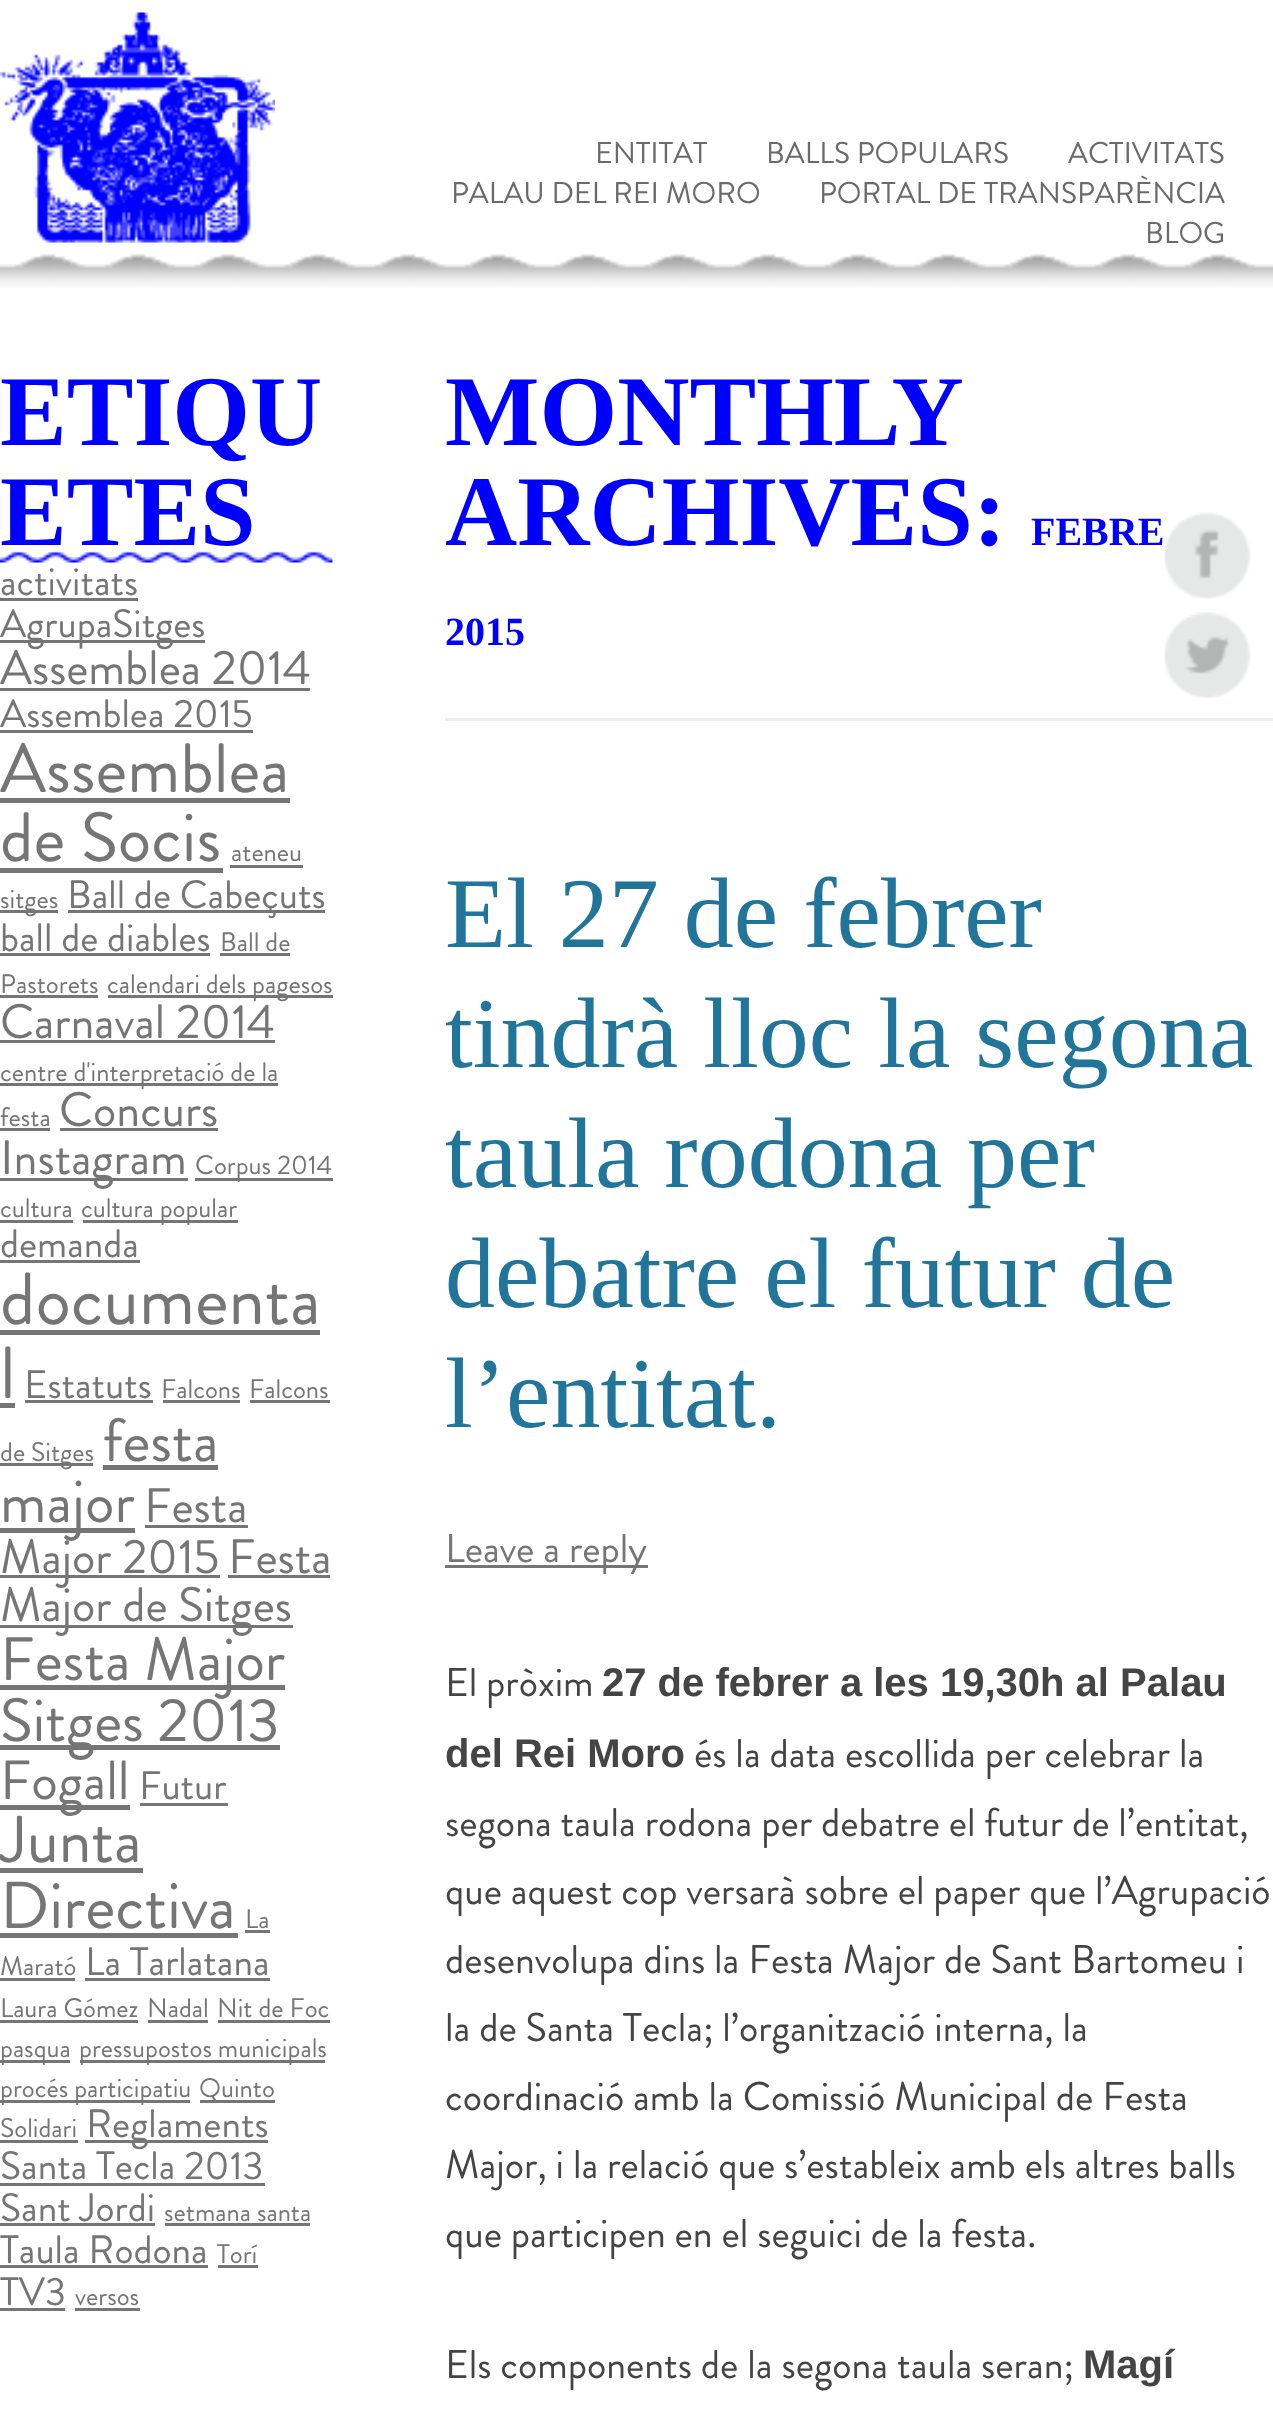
async function draw(canvas) {
	canvas.width = 1273;
	canvas.height = 2425;
	const c = canvas.getContext('2d');
	c.miterLimit = 4;
	c.fontKerning = 'normal';
	async function loadImage(src) {
		const img = new Image();
		img.src = src;
		await img.decode();
		return img;
	}

	c.fillStyle = '#fff';
	c.fillRect(0, 0, 1273, 2425);
	c.drawImage(await loadImage('img1.png'), 0, 254, 1273, 34);
	c.drawImage(await loadImage('img2.png'), 0, 12, 275, 231);
	c.font = '30px Brandon Grotesque';
	c.fillStyle = '#6a6a6a';
	for (const [text, x, y] of [
		['ENTITAT', 595, 163],
		['BALLS POPULARS', 766, 163],
		['ACTIVITATS', 1068, 163],
		['PALAU DEL REI MORO', 451, 203],
		['PORTAL DE TRANSPARÈNCIA', 819, 203],
		['BLOG', 1145, 243],
	]) {
		c.fillText(text, x, y);
	}
	c.drawImage(await loadImage('img3.png'), 0, 551, 333, 12);
	c.font = 'bold 100px Liberation Serif';
	c.fillStyle = '#00f';
	c.fillText('ETIQU', 0, 445);
	c.fillText('ETES', 0, 545);
	c.font = '39.5px Brandon Grotesque';
	c.fillStyle = '#757575';
	c.fillText('activitats', 0, 595);
	c.fillRect(0, 598, 138, 3);
	c.fillRect(0, 640, 205, 3);
	c.fillText('AgrupaSitges', 0, 637);
	c.font = '48.25px Brandon Grotesque';
	c.fillText('Assemblea 2014', 0, 684);
	c.fillRect(0, 688, 310, 3);
	c.font = '39.5px Brandon Grotesque';
	c.fillText('Assemblea 2015', 0, 727);
	c.fillRect(0, 730, 253, 3);
	c.font = '69.5px Brandon Grotesque';
	c.fillText('Assemblea', 0, 792);
	c.fillRect(0, 798, 290, 5);
	c.fillText('de Socis', 0, 861);
	c.fillRect(0, 868, 223, 5);
	c.font = '26.75px Brandon Grotesque';
	c.fillText('ateneu', 231, 861);
	c.fillRect(230, 865, 73, 3);
	c.fillRect(0, 910, 58, 3);
	c.fillText('sitges', 0, 908);
	c.fillRect(68, 910, 257, 3);
	c.font = '39.5px Brandon Grotesque';
	c.fillText('Ball de Cabeçuts', 67, 908);
	c.fillText('ball de diables', 0, 951);
	c.fillRect(0, 953, 210, 3);
	c.font = '26.75px Brandon Grotesque';
	c.fillText('Ball de', 220, 951);
	c.fillRect(220, 953, 70, 3);
	c.fillText('Pastorets', 0, 993);
	c.fillRect(0, 995, 98, 3);
	c.fillRect(108, 995, 225, 3);
	c.fillText('calendari dels pagesos', 107, 993);
	c.font = '48.25px Brandon Grotesque';
	c.fillText('Carnaval 2014', 0, 1038);
	c.fillRect(0, 1040, 275, 3);
	c.fillRect(0, 1083, 278, 3);
	c.font = '26.75px Brandon Grotesque';
	c.fillText('centre d\'interpretació de la', 0, 1081);
	c.fillText('festa', 0, 1126);
	c.fillRect(0, 1128, 50, 3);
	c.font = '48.25px Brandon Grotesque';
	c.fillText('Concurs', 59, 1126);
	c.fillRect(60, 1128, 158, 3);
	c.fillRect(0, 1178, 188, 3);
	c.fillText('Instagram', 0, 1174);
	c.fillRect(195, 1178, 138, 3);
	c.font = '26.75px Brandon Grotesque';
	c.fillText('Corpus 2014', 195, 1174);
	c.fillText('cultura', 0, 1217);
	c.fillRect(0, 1220, 73, 3);
	c.fillRect(83, 1220, 155, 3);
	c.fillText('cultura popular', 81, 1217);
	c.font = '39.5px Brandon Grotesque';
	c.fillText('demanda', 0, 1257);
	c.fillRect(0, 1260, 140, 3);
	c.font = '73.5px Brandon Grotesque';
	c.fillText('documenta', 0, 1324);
	c.fillRect(0, 1330, 320, 5);
	c.fillText('l', 0, 1398);
	c.fillRect(0, 1403, 15, 5);
	c.font = '39.5px Brandon Grotesque';
	c.fillText('Estatuts', 24, 1398);
	c.fillRect(25, 1400, 128, 3);
	c.font = '26.75px Brandon Grotesque';
	c.fillText('Falcons', 161, 1398);
	c.fillRect(163, 1400, 77, 3);
	c.fillText('Falcons', 249, 1398);
	c.fillRect(250, 1400, 80, 3);
	c.fillRect(0, 1463, 93, 3);
	c.fillText('de Sitges', 0, 1461);
	c.font = '61px Brandon Grotesque';
	c.fillText('festa', 103, 1461);
	c.fillRect(103, 1465, 115, 5);
	c.fillRect(0, 1528, 135, 5);
	c.fillText('major', 0, 1522);
	c.font = '48.25px Brandon Grotesque';
	c.fillText('Festa', 144, 1522);
	c.fillRect(145, 1525, 103, 3);
	c.fillRect(0, 1575, 220, 3);
	c.fillText('Major 2015', 0, 1573);
	c.fillText('Festa', 228, 1573);
	c.fillRect(228, 1575, 102, 3);
	c.fillRect(0, 1625, 293, 3);
	c.fillText('Major de Sitges', 0, 1621);
	c.fillRect(0, 1685, 285, 5);
	c.font = '61px Brandon Grotesque';
	c.fillText('Festa Major', 0, 1680);
	c.fillRect(0, 1745, 280, 5);
	c.fillText('Sitges 2013', 0, 1741);
	c.fillRect(0, 1805, 130, 5);
	c.font = '55px Brandon Grotesque';
	c.fillText('Fogall', 0, 1799);
	c.font = '39.5px Brandon Grotesque';
	c.fillText('Futur', 139, 1799);
	c.fillRect(140, 1803, 88, 3);
	c.font = '66px Brandon Grotesque';
	c.fillText('Junta', 0, 1862);
	c.fillRect(0, 1868, 143, 5);
	c.fillText('Directiva', 0, 1928);
	c.fillRect(0, 1933, 238, 5);
	c.font = '26.75px Brandon Grotesque';
	c.fillText('La', 245, 1928);
	c.fillRect(245, 1930, 25, 3);
	c.fillText('Marató', 0, 1975);
	c.fillRect(0, 1978, 75, 3);
	c.font = '39.5px Brandon Grotesque';
	c.fillText('La Tarlatana', 85, 1975);
	c.fillRect(85, 1978, 185, 3);
	c.font = '26.75px Brandon Grotesque';
	c.fillText('Laura Gómez', 0, 2017);
	c.fillRect(0, 2020, 138, 3);
	c.fillText('Nadal', 147, 2017);
	c.fillRect(148, 2020, 60, 3);
	c.fillText('Nit de Foc', 217, 2017);
	c.fillRect(218, 2020, 112, 3);
	c.fillRect(0, 2060, 70, 3);
	c.fillText('pasqua', 0, 2057);
	c.fillRect(80, 2060, 245, 3);
	c.fillText('pressupostos municipals', 79, 2057);
	c.fillRect(0, 2100, 190, 3);
	c.fillText('procés participatiu', 0, 2097);
	c.fillRect(200, 2100, 75, 3);
	c.fillText('Quinto', 199, 2097);
	c.fillText('Solidari', 0, 2137);
	c.fillRect(0, 2140, 78, 3);
	c.fillRect(85, 2140, 183, 3);
	c.font = '39.5px Brandon Grotesque';
	c.fillText('Reglaments', 86, 2137);
	c.fillText('Santa Tecla 2013', 0, 2179);
	c.fillRect(0, 2183, 265, 3);
	c.fillText('Sant Jordi', 0, 2221);
	c.fillRect(0, 2223, 155, 3);
	c.font = '26.75px Brandon Grotesque';
	c.fillText('setmana santa', 164, 2221);
	c.fillRect(165, 2223, 145, 3);
	c.font = '39.5px Brandon Grotesque';
	c.fillText('Taula Rodona', 0, 2263);
	c.fillRect(0, 2265, 208, 3);
	c.font = '26.75px Brandon Grotesque';
	c.fillText('Torí', 217, 2263);
	c.fillRect(218, 2265, 40, 3);
	c.font = '39.5px Brandon Grotesque';
	c.fillText('TV3', 0, 2305);
	c.fillRect(0, 2308, 65, 3);
	c.font = '26.75px Brandon Grotesque';
	c.fillText('versos', 75, 2305);
	c.fillRect(75, 2308, 65, 3);
	c.fillStyle = '#ededed';
	c.fillRect(445, 718, 828, 3);
	c.font = 'bold 100px Liberation Serif';
	c.fillStyle = '#00f';
	c.fillText('MONTHLY', 445, 445);
	c.fillText('ARCHIVES:', 445, 545);
	c.font = 'bold 40px Liberation Serif';
	c.fillText('FEBRE', 1031, 545);
	c.fillText('2015', 445, 645);
	c.font = '100px Liberation Serif';
	c.fillStyle = '#21759b';
	for (const [text, x, y] of [
		['El 27 de febrer', 445, 947],
		['tindrà lloc la segona', 445, 1067],
		['taula rodona per', 445, 1187],
		['debatre el futur de', 445, 1307],
		['l’entitat.', 445, 1427],
	]) {
		c.fillText(text, x, y);
	}
	c.fillStyle = '#757575';
	c.fillRect(445, 1565, 203, 3);
	c.font = '40px Brandon Grotesque';
	c.fillText('Leave a reply', 445, 1562);
	c.fillStyle = '#444';
	c.fillText('El pròxim', 445, 1696);
	c.font = 'bold 40px Liberation Sans';
	c.fillText('27 de febrer a les 19,30h al Palau', 602, 1696);
	c.fillText('del Rei Moro', 445, 1767);
	c.font = '40px Brandon Grotesque';
	for (const [text, x, y] of [
		['és la data escollida per celebrar la', 694, 1767],
		['segona taula rodona per debatre el futur de l’entitat,', 445, 1836],
		['que aquest cop versarà sobre el paper que l’Agrupació', 445, 1904],
		['desenvolupa dins la Festa Major de Sant Bartomeu i', 445, 1973],
		['la de Santa Tecla; l’organització interna, la', 445, 2041],
		['coordinació amb la Comissió Municipal de Festa', 445, 2110],
		['Major, i la relació que s’estableix amb els altres balls', 445, 2178],
		['que participen en el seguici de la festa.', 445, 2247],
		['Els components de la segona taula seran;', 445, 2378],
	]) {
		c.fillText(text, x, y);
	}
	c.font = 'bold 40px Liberation Sans';
	c.fillText('Magí', 1083, 2378);
	c.drawImage(await loadImage('img4.png'), 1164, 512, 87, 87);
	c.drawImage(await loadImage('img5.png'), 1164, 612, 87, 86);
}

draw(document.querySelector('canvas'));
